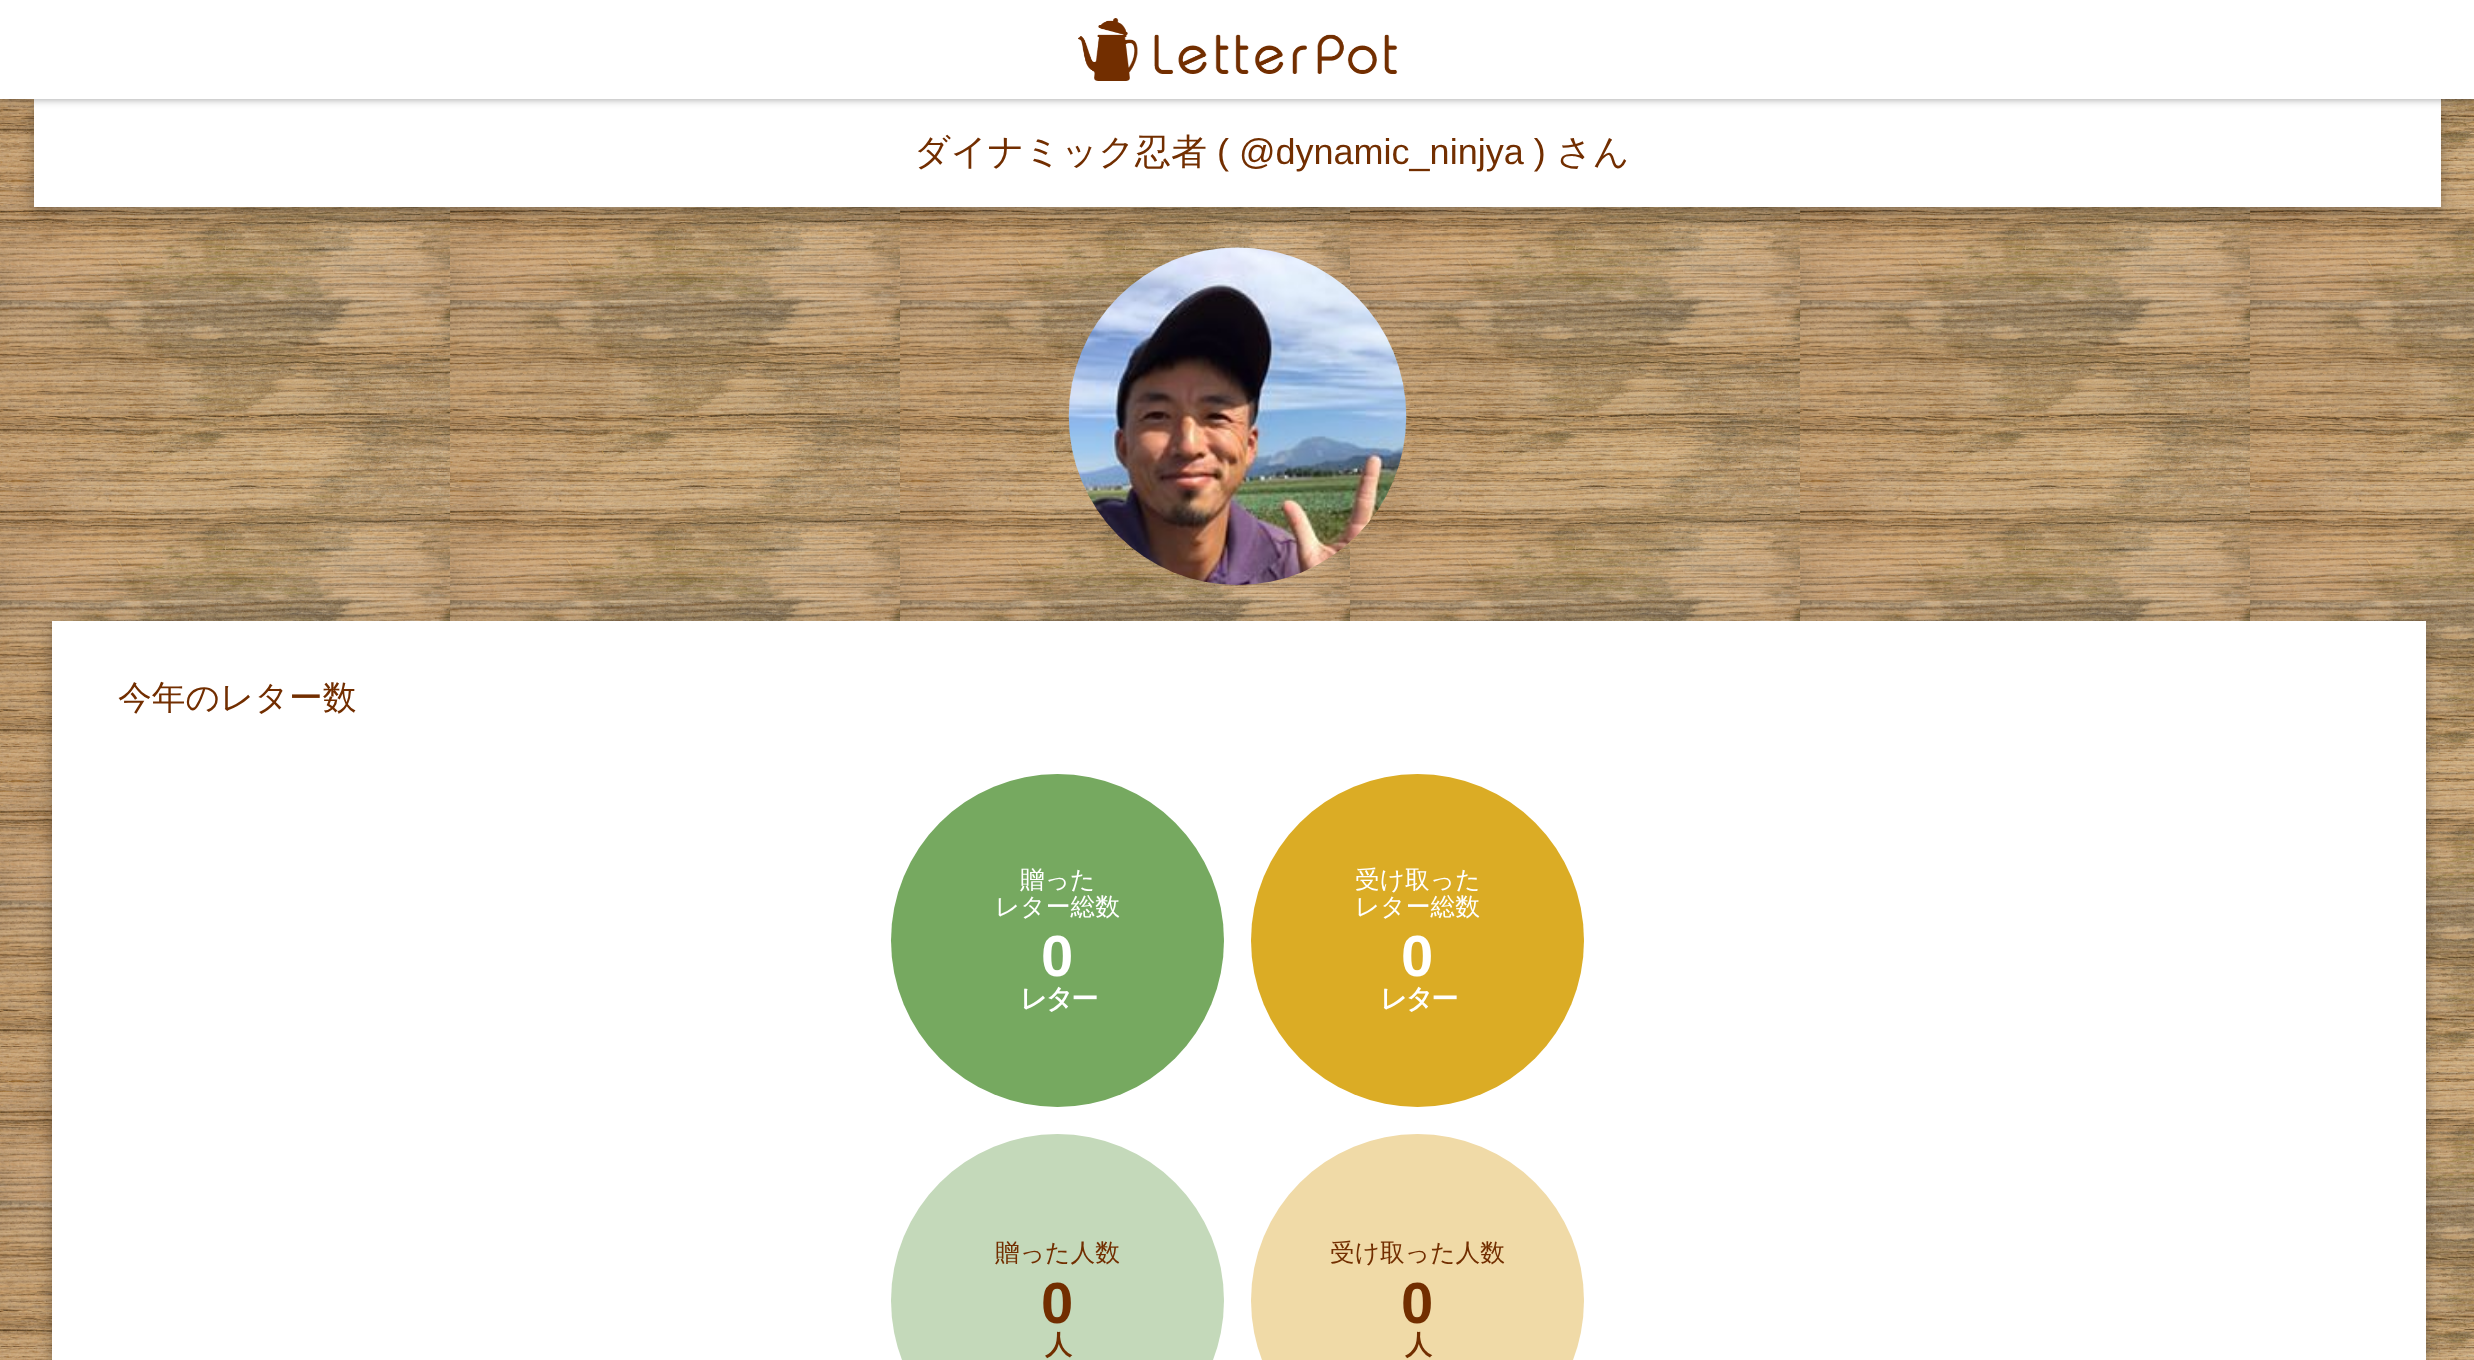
async function draw(canvas) {
	canvas.width = 2474;
	canvas.height = 1360;
	const c = canvas.getContext('2d');
	c.miterLimit = 4;
	c.fontKerning = 'normal';
	async function loadImage(src) {
		const img = new Image();
		img.src = src;
		await img.decode();
		return img;
	}

	c.fillStyle = '#fff';
	c.fillRect(0, 0, 2474, 1360);
	c.drawImage(await loadImage('img1.png'), 0, 99, 2474, 1261);
	c.fillStyle = '#0000004d';
	c.filter = 'blur(7px)';
	c.beginPath();
	c.rect(34, 104, 2407, 108);
	c.fill();
	c.filter = 'none';
	c.fillStyle = '#fff';
	c.fillRect(34, 99, 2407, 108);
	c.fillStyle = '#00000066';
	c.filter = 'blur(4.5px)';
	c.beginPath();
	c.rect(0, 0, 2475, 99);
	c.fill();
	c.filter = 'none';
	c.fillStyle = '#fff';
	c.fillRect(0, 0, 2474, 99);
	c.drawImage(await loadImage('img2.png'), 1078, 18, 320, 63);
	c.font = '500 36px WenQuanYi Zen Hei';
	c.fillStyle = '#722e00';
	c.fillText('ダイナミック忍者', 914, 164);
	c.font = '36px Liberation Sans';
	c.fillText('( @dynamic_ninjya )', 1217, 164);
	c.font = '500 36px WenQuanYi Zen Hei';
	c.fillText('さん', 1556, 164);
	c.drawImage(await loadImage('img3.png'), 1068, 247, 339, 338);
	c.fillStyle = '#0000004d';
	c.filter = 'blur(7px)';
	c.beginPath();
	c.rect(52, 626, 2374, 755);
	c.fill();
	c.filter = 'none';
	c.fillStyle = '#fff';
	c.fillRect(52, 621, 2374, 739);
	c.font = '500 33.75px WenQuanYi Zen Hei';
	c.fillStyle = '#722e00';
	c.fillText('今年のレター数', 118, 709);
	c.fillStyle = '#76a960';
	c.beginPath();
	c.arc(1057.5, 940.5, 166.5, 0, 2 * Math.PI);
	c.fill();
	c.font = '500 24.75px WenQuanYi Zen Hei';
	c.fillStyle = '#fff';
	c.fillText('贈った', 1020, 888);
	c.fillText('レター総数', 995, 915);
	c.font = 'bold 58px Liberation Sans';
	c.fillText('0', 1041, 976);
	c.letterSpacing = '-2px';
	c.font = 'bold 27px WenQuanYi Zen Hei';
	c.fillText('レター', 1020, 1008);
	c.fillStyle = '#dbac25';
	c.beginPath();
	c.arc(1417.5, 940.5, 166.5, 0, 2 * Math.PI);
	c.fill();
	c.letterSpacing = '0px';
	c.font = '500 24.75px WenQuanYi Zen Hei';
	c.fillStyle = '#fff';
	c.fillText('受け取った', 1355, 888);
	c.fillText('レター総数', 1355, 915);
	c.font = 'bold 58px Liberation Sans';
	c.fillText('0', 1401, 976);
	c.letterSpacing = '-2px';
	c.font = 'bold 27px WenQuanYi Zen Hei';
	c.fillText('レター', 1380, 1008);
	c.fillStyle = '#c4d9ba';
	c.beginPath();
	c.arc(1057.5, 1300.5, 166.5, 0, 2 * Math.PI);
	c.fill();
	c.letterSpacing = '0px';
	c.font = '500 24.75px WenQuanYi Zen Hei';
	c.fillStyle = '#722e00';
	c.fillText('贈った人数', 995, 1261);
	c.font = 'bold 58px Liberation Sans';
	c.fillText('0', 1041, 1323);
	c.letterSpacing = '-2px';
	c.font = 'bold 27px WenQuanYi Zen Hei';
	c.fillText('人', 1045, 1354);
	c.fillStyle = '#f0daa7';
	c.beginPath();
	c.arc(1417.5, 1300.5, 166.5, 0, 2 * Math.PI);
	c.fill();
	c.letterSpacing = '0px';
	c.font = '500 24.75px WenQuanYi Zen Hei';
	c.fillStyle = '#722e00';
	c.fillText('受け取った人数', 1330, 1261);
	c.font = 'bold 58px Liberation Sans';
	c.fillText('0', 1401, 1323);
	c.letterSpacing = '-2px';
	c.font = 'bold 27px WenQuanYi Zen Hei';
	c.fillText('人', 1405, 1354);
}

draw(document.querySelector('canvas'));
